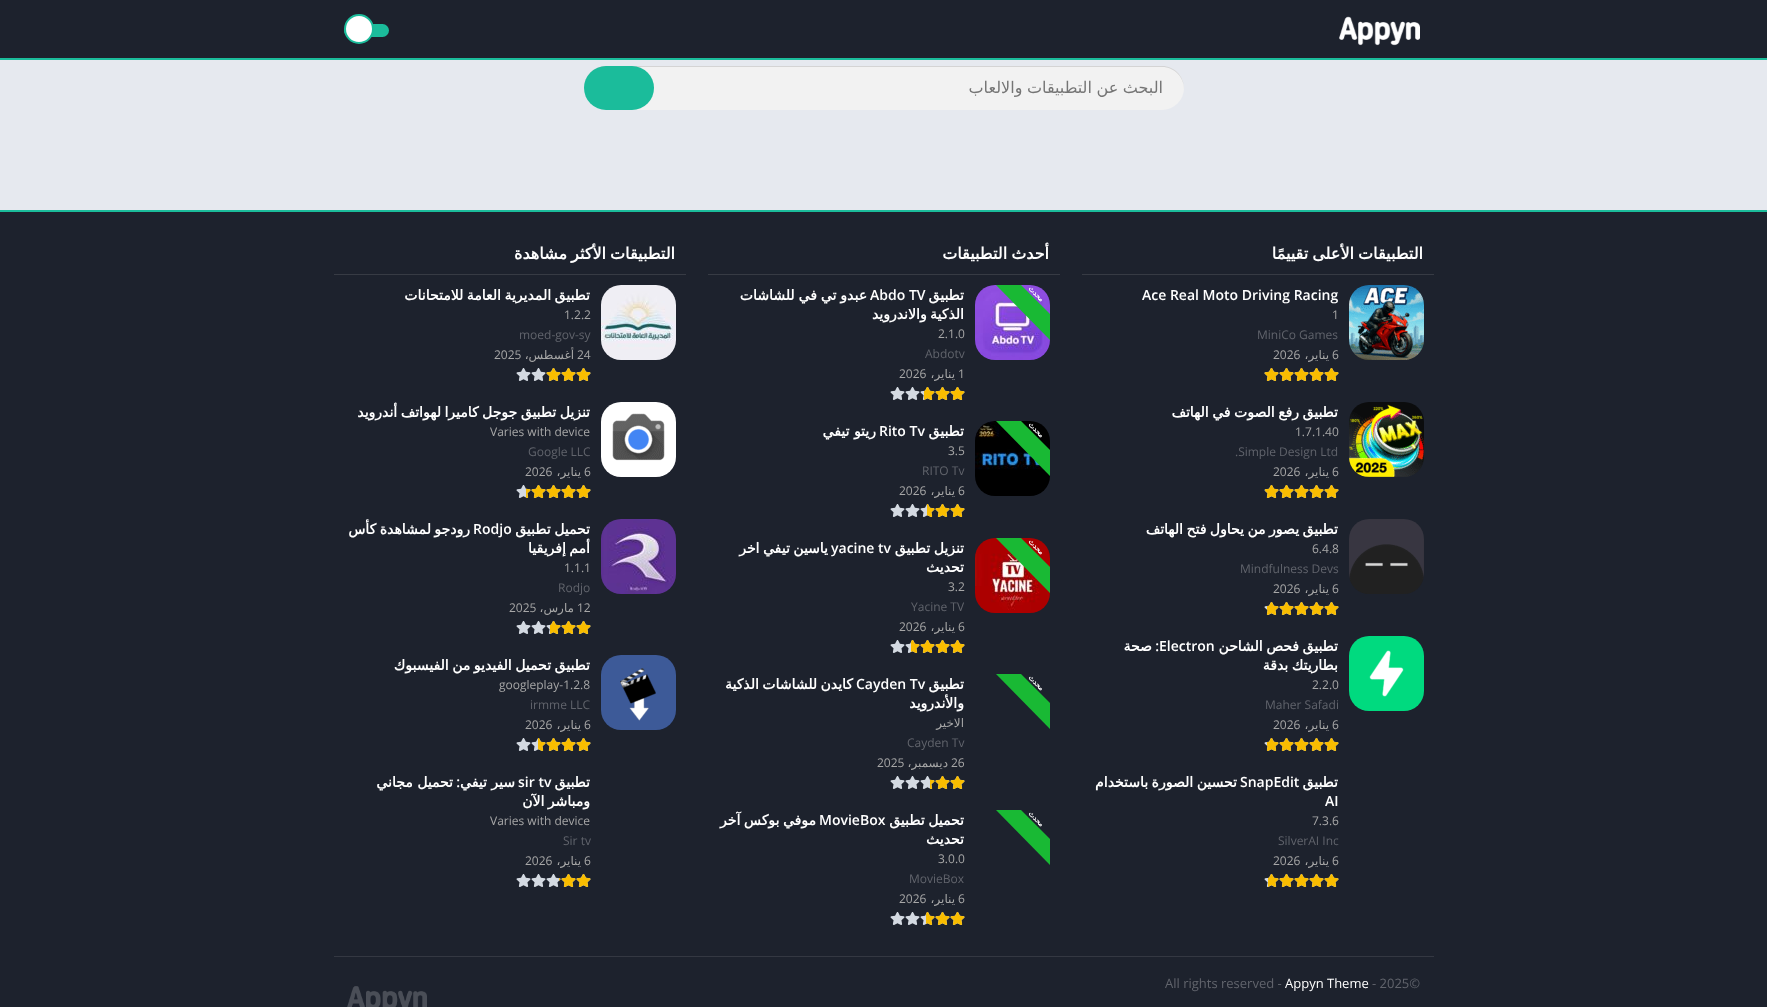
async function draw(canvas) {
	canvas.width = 1767;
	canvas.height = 1007;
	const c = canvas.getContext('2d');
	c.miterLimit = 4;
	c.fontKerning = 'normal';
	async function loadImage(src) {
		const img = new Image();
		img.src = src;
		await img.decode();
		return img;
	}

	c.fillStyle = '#e6e9ef';
	c.fillRect(0, 0, 1767, 1007);
	c.fillStyle = '#1d222d';
	c.fillRect(0, 0, 1767, 58);
	c.fillStyle = '#1bbc9b';
	c.fillRect(0, 58, 1767, 2);
	c.drawImage(await loadImage('img1.png'), 1339, 16, 81, 30);
	c.beginPath();
	c.roundRect(344, 24, 45, 13, 6.5);
	c.fill();
	c.fillStyle = '#fff';
	c.beginPath();
	c.arc(359, 29, 14, 0, 2 * Math.PI);
	c.fill();
	c.strokeStyle = '#1bbc9b';
	c.lineWidth = 2;
	c.stroke();
	c.fillStyle = '#f2f2f2';
	c.beginPath();
	c.roundRect(584, 66, 600, 44, 22);
	c.fill();
	c.fillStyle = '#0000001f';
	c.beginPath();
	c.moveTo(606, 67);
	c.lineTo(1162, 67);
	c.bezierCurveTo(1174, 67, 1184, 77, 1184, 89);
	c.lineTo(1184, 88);
	c.bezierCurveTo(1184, 76, 1174, 66, 1162, 66);
	c.lineTo(606, 66);
	c.bezierCurveTo(594, 66, 584, 76, 584, 88);
	c.lineTo(584, 89);
	c.bezierCurveTo(584, 77, 594, 67, 606, 67);
	c.closePath();
	c.fill();
	c.wordSpacing = '-0.5px';
	c.direction = 'rtl';
	c.font = '16px DejaVu Sans';
	c.fillStyle = '#757575';
	c.fillText('البحث عن التطبيقات والالعاب', 1163, 93);
	c.fillStyle = '#1bbc9b';
	c.beginPath();
	c.roundRect(584, 66, 70, 44, 22);
	c.fill();
	for (const [x, y, w, h, color] of [
		[0, 212, 1767, 795, '#1d222d'],
		[0, 210, 1767, 2, '#1bbc9b'],
		[334, 956, 1100, 1, '#343842'],
		[1082, 274, 352, 1, '#373b44'],
	]) {
		c.fillStyle = color;
		c.fillRect(x, y, w, h);
	}
	c.wordSpacing = '-1px';
	c.font = 'bold 16px DejaVu Sans';
	c.fillStyle = '#fff';
	c.fillText('التطبيقات الأعلى تقييمًا', 1423, 259);
	c.drawImage(await loadImage('img2.png'), 1349, 285, 75, 75);
	c.wordSpacing = '0px';
	c.direction = 'ltr';
	c.font = '600 14px Open Sans';
	c.fillText('Ace Real Moto Driving Racing', 1142, 300);
	c.font = '12px Open Sans';
	c.fillStyle = '#a7a7a7';
	c.fillText('1', 1332, 319);
	c.fillStyle = '#61646c';
	c.fillText('MiniCo Games', 1257, 339);
	c.fillStyle = '#a7a7a7';
	c.fillText('6', 1332, 359);
	c.direction = 'rtl';
	c.font = '12px DejaVu Sans';
	c.fillText('يناير،', 1329, 359);
	c.direction = 'ltr';
	c.font = '12px Open Sans';
	c.fillText('2026', 1273, 359);
	c.drawImage(await loadImage('img3.png'), 1264, 368, 75, 13);
	c.drawImage(await loadImage('img4.png'), 1264, 368, 75, 13);
	c.drawImage(await loadImage('img5.png'), 1349, 402, 75, 75);
	c.wordSpacing = '-1px';
	c.direction = 'rtl';
	c.font = 'bold 14px DejaVu Sans';
	c.fillStyle = '#fff';
	c.fillText('تطبيق رفع الصوت في الهاتف', 1338, 417);
	c.wordSpacing = '0px';
	c.direction = 'ltr';
	c.font = '12px Open Sans';
	c.fillStyle = '#a7a7a7';
	c.fillText('1.7.1.40', 1295, 436);
	c.fillStyle = '#61646c';
	c.fillText('.Simple Design Ltd', 1235, 456);
	c.fillStyle = '#a7a7a7';
	c.fillText('6', 1332, 476);
	c.direction = 'rtl';
	c.font = '12px DejaVu Sans';
	c.fillText('يناير،', 1329, 476);
	c.direction = 'ltr';
	c.font = '12px Open Sans';
	c.fillText('2026', 1273, 476);
	c.drawImage(await loadImage('img3.png'), 1264, 485, 75, 13);
	c.drawImage(await loadImage('img6.png'), 1265, 485, 74, 13);
	c.drawImage(await loadImage('img7.png'), 1349, 519, 75, 75);
	c.wordSpacing = '-1px';
	c.direction = 'rtl';
	c.font = 'bold 14px DejaVu Sans';
	c.fillStyle = '#fff';
	c.fillText('تطبيق يصور من يحاول فتح الهاتف', 1338, 534);
	c.wordSpacing = '0px';
	c.direction = 'ltr';
	c.font = '12px Open Sans';
	c.fillStyle = '#a7a7a7';
	c.fillText('6.4.8', 1312, 553);
	c.fillStyle = '#61646c';
	c.fillText('Mindfulness Devs', 1240, 573);
	c.fillStyle = '#a7a7a7';
	c.fillText('6', 1332, 593);
	c.direction = 'rtl';
	c.font = '12px DejaVu Sans';
	c.fillText('يناير،', 1329, 593);
	c.direction = 'ltr';
	c.font = '12px Open Sans';
	c.fillText('2026', 1273, 593);
	c.drawImage(await loadImage('img3.png'), 1264, 602, 75, 13);
	c.drawImage(await loadImage('img8.png'), 1267, 602, 72, 13);
	c.drawImage(await loadImage('img9.png'), 1349, 636, 75, 75);
	c.wordSpacing = '-1px';
	c.direction = 'rtl';
	c.font = 'bold 14px DejaVu Sans';
	c.fillStyle = '#fff';
	c.fillText('تطبيق فحص الشاحن', 1338, 651);
	c.wordSpacing = '0px';
	c.direction = 'ltr';
	c.font = '600 14px Open Sans';
	c.fillText('Electron', 1159, 651);
	c.direction = 'rtl';
	c.fillText(':', 1159, 651);
	c.font = 'bold 14px DejaVu Sans';
	c.fillText('صحة', 1152, 651);
	c.wordSpacing = '-1px';
	c.fillText('بطاريتك بدقة', 1338, 670);
	c.wordSpacing = '0px';
	c.direction = 'ltr';
	c.font = '12px Open Sans';
	c.fillStyle = '#a7a7a7';
	c.fillText('2.2.0', 1312, 689);
	c.fillStyle = '#61646c';
	c.fillText('Maher Safadi', 1265, 709);
	c.fillStyle = '#a7a7a7';
	c.fillText('6', 1332, 729);
	c.direction = 'rtl';
	c.font = '12px DejaVu Sans';
	c.fillText('يناير،', 1329, 729);
	c.direction = 'ltr';
	c.font = '12px Open Sans';
	c.fillText('2026', 1273, 729);
	c.drawImage(await loadImage('img3.png'), 1264, 738, 75, 13);
	c.drawImage(await loadImage('img8.png'), 1267, 738, 72, 13);
	c.direction = 'rtl';
	c.font = 'bold 14px DejaVu Sans';
	c.fillStyle = '#fff';
	c.fillText('تطبيق', 1338, 787);
	c.direction = 'ltr';
	c.font = '600 14px Open Sans';
	c.fillText('SnapEdit', 1240, 787);
	c.wordSpacing = '-1px';
	c.direction = 'rtl';
	c.font = 'bold 14px DejaVu Sans';
	c.fillText('تحسين الصورة باستخدام', 1237, 787);
	c.wordSpacing = '0px';
	c.direction = 'ltr';
	c.font = '600 14px Open Sans';
	c.fillText('AI', 1325, 806);
	c.font = '12px Open Sans';
	c.fillStyle = '#a7a7a7';
	c.fillText('7.3.6', 1312, 825);
	c.fillStyle = '#61646c';
	c.fillText('SilverAI Inc', 1278, 845);
	c.fillStyle = '#a7a7a7';
	c.fillText('6', 1332, 865);
	c.direction = 'rtl';
	c.font = '12px DejaVu Sans';
	c.fillText('يناير،', 1329, 865);
	c.direction = 'ltr';
	c.font = '12px Open Sans';
	c.fillText('2026', 1273, 865);
	c.drawImage(await loadImage('img3.png'), 1264, 874, 75, 13);
	c.drawImage(await loadImage('img10.png'), 1268, 874, 71, 13);
	c.fillStyle = '#373b44';
	c.fillRect(708, 274, 352, 1);
	c.wordSpacing = '-1px';
	c.direction = 'rtl';
	c.font = 'bold 16px DejaVu Sans';
	c.fillStyle = '#fff';
	c.fillText('أحدث التطبيقات', 1049, 259);
	c.drawImage(await loadImage('img11.png'), 975, 285, 75, 75);
	c.fillStyle = '#19b934';
	c.beginPath();
	c.moveTo(1021, 285);
	c.lineTo(1050, 314);
	c.lineTo(1050, 340);
	c.lineTo(996, 285);
	c.closePath();
	c.fill();
	c.wordSpacing = '0px';
	c.font = 'bold 7px DejaVu Sans';
	c.fillStyle = '#fff';
	c.save();
	c.translate(1041, 302);
	c.rotate(45 * Math.PI / 180);
	c.fillText('محدث', 0, 0);
	c.restore();
	c.font = 'bold 14px DejaVu Sans';
	c.fillText('تطبيق', 964, 300);
	c.direction = 'ltr';
	c.font = '600 14px Open Sans';
	c.fillText('Abdo TV', 870, 300);
	c.wordSpacing = '-0.5px';
	c.direction = 'rtl';
	c.font = 'bold 14px DejaVu Sans';
	c.fillText('عبدو تي في للشاشات', 867, 300);
	c.wordSpacing = '-1px';
	c.fillText('الذكية والاندرويد', 964, 319);
	c.wordSpacing = '0px';
	c.direction = 'ltr';
	c.font = '12px Open Sans';
	c.fillStyle = '#a7a7a7';
	c.fillText('2.1.0', 938, 338);
	c.fillStyle = '#61646c';
	c.fillText('Abdotv', 925, 358);
	c.fillStyle = '#a7a7a7';
	c.fillText('1', 958, 378);
	c.direction = 'rtl';
	c.font = '12px DejaVu Sans';
	c.fillText('يناير،', 955, 378);
	c.direction = 'ltr';
	c.font = '12px Open Sans';
	c.fillText('2026', 899, 378);
	c.drawImage(await loadImage('img3.png'), 890, 387, 75, 13);
	c.drawImage(await loadImage('img12.png'), 924, 387, 41, 13);
	c.drawImage(await loadImage('img13.png'), 975, 421, 75, 75);
	c.fillStyle = '#19b934';
	c.beginPath();
	c.moveTo(1050, 476);
	c.lineTo(996, 421);
	c.lineTo(1021, 421);
	c.lineTo(1050, 450);
	c.closePath();
	c.fill();
	c.direction = 'rtl';
	c.font = 'bold 7px DejaVu Sans';
	c.fillStyle = '#fff';
	c.save();
	c.translate(1041, 438);
	c.rotate(45 * Math.PI / 180);
	c.fillText('محدث', 0, 0);
	c.restore();
	c.font = 'bold 14px DejaVu Sans';
	c.fillText('تطبيق', 964, 436);
	c.direction = 'ltr';
	c.font = '600 14px Open Sans';
	c.fillText('Rito Tv', 879, 436);
	c.direction = 'rtl';
	c.font = 'bold 14px DejaVu Sans';
	c.fillText('ريتو تيفي', 876, 436);
	c.direction = 'ltr';
	c.font = '12px Open Sans';
	c.fillStyle = '#a7a7a7';
	c.fillText('3.5', 948, 455);
	c.fillStyle = '#61646c';
	c.fillText('RITO Tv', 922, 475);
	c.fillStyle = '#a7a7a7';
	c.fillText('6', 958, 495);
	c.direction = 'rtl';
	c.font = '12px DejaVu Sans';
	c.fillText('يناير،', 955, 495);
	c.direction = 'ltr';
	c.font = '12px Open Sans';
	c.fillText('2026', 899, 495);
	c.drawImage(await loadImage('img3.png'), 890, 504, 75, 13);
	c.drawImage(await loadImage('img14.png'), 927, 504, 38, 13);
	c.drawImage(await loadImage('img15.png'), 975, 538, 75, 75);
	c.fillStyle = '#19b934';
	c.beginPath();
	c.moveTo(1050, 593);
	c.lineTo(996, 538);
	c.lineTo(1021, 538);
	c.lineTo(1050, 567);
	c.closePath();
	c.fill();
	c.direction = 'rtl';
	c.font = 'bold 7px DejaVu Sans';
	c.fillStyle = '#fff';
	c.save();
	c.translate(1041, 555);
	c.rotate(45 * Math.PI / 180);
	c.fillText('محدث', 0, 0);
	c.restore();
	c.wordSpacing = '-1px';
	c.font = 'bold 14px DejaVu Sans';
	c.fillText('تنزيل تطبيق', 964, 553);
	c.wordSpacing = '0px';
	c.direction = 'ltr';
	c.font = '600 14px Open Sans';
	c.fillText('yacine tv', 831, 553);
	c.wordSpacing = '-1px';
	c.direction = 'rtl';
	c.font = 'bold 14px DejaVu Sans';
	c.fillText('ياسين تيفي اخر', 828, 553);
	c.wordSpacing = '0px';
	c.fillText('تحديث', 964, 572);
	c.direction = 'ltr';
	c.font = '12px Open Sans';
	c.fillStyle = '#a7a7a7';
	c.fillText('3.2', 948, 591);
	c.fillStyle = '#61646c';
	c.fillText('Yacine TV', 911, 611);
	c.fillStyle = '#a7a7a7';
	c.fillText('6', 958, 631);
	c.direction = 'rtl';
	c.font = '12px DejaVu Sans';
	c.fillText('يناير،', 955, 631);
	c.direction = 'ltr';
	c.font = '12px Open Sans';
	c.fillText('2026', 899, 631);
	c.drawImage(await loadImage('img3.png'), 890, 640, 75, 13);
	c.drawImage(await loadImage('img16.png'), 911, 640, 54, 13);
	c.fillStyle = '#19b934';
	c.beginPath();
	c.moveTo(1050, 729);
	c.lineTo(996, 674);
	c.lineTo(1021, 674);
	c.lineTo(1050, 703);
	c.closePath();
	c.fill();
	c.direction = 'rtl';
	c.font = 'bold 7px DejaVu Sans';
	c.fillStyle = '#fff';
	c.save();
	c.translate(1041, 691);
	c.rotate(45 * Math.PI / 180);
	c.fillText('محدث', 0, 0);
	c.restore();
	c.font = 'bold 14px DejaVu Sans';
	c.fillText('تطبيق', 964, 689);
	c.direction = 'ltr';
	c.font = '600 14px Open Sans';
	c.fillText('Cayden Tv', 856, 689);
	c.wordSpacing = '-1px';
	c.direction = 'rtl';
	c.font = 'bold 14px DejaVu Sans';
	c.fillText('كايدن للشاشات الذكية', 853, 689);
	c.wordSpacing = '0px';
	c.fillText('والأندرويد', 964, 708);
	c.font = '12px DejaVu Sans';
	c.fillStyle = '#a7a7a7';
	c.fillText('الاخير', 964, 727);
	c.direction = 'ltr';
	c.font = '12px Open Sans';
	c.fillStyle = '#61646c';
	c.fillText('Cayden Tv', 907, 747);
	c.fillStyle = '#a7a7a7';
	c.fillText('26', 951, 767);
	c.direction = 'rtl';
	c.font = '12px DejaVu Sans';
	c.fillText('ديسمبر،', 948, 767);
	c.direction = 'ltr';
	c.font = '12px Open Sans';
	c.fillText('2025', 877, 767);
	c.drawImage(await loadImage('img3.png'), 890, 776, 75, 13);
	c.drawImage(await loadImage('img17.png'), 930, 776, 35, 13);
	c.fillStyle = '#19b934';
	c.beginPath();
	c.moveTo(1050, 865);
	c.lineTo(996, 810);
	c.lineTo(1021, 810);
	c.lineTo(1050, 839);
	c.closePath();
	c.fill();
	c.direction = 'rtl';
	c.font = 'bold 7px DejaVu Sans';
	c.fillStyle = '#fff';
	c.save();
	c.translate(1041, 827);
	c.rotate(45 * Math.PI / 180);
	c.fillText('محدث', 0, 0);
	c.restore();
	c.wordSpacing = '-1px';
	c.font = 'bold 14px DejaVu Sans';
	c.fillText('تحميل تطبيق', 964, 825);
	c.wordSpacing = '0px';
	c.direction = 'ltr';
	c.font = '600 14px Open Sans';
	c.fillText('MovieBox', 819, 825);
	c.wordSpacing = '-1px';
	c.direction = 'rtl';
	c.font = 'bold 14px DejaVu Sans';
	c.fillText('موفي بوكس آخر', 816, 825);
	c.wordSpacing = '0px';
	c.fillText('تحديث', 964, 844);
	c.direction = 'ltr';
	c.font = '12px Open Sans';
	c.fillStyle = '#a7a7a7';
	c.fillText('3.0.0', 938, 863);
	c.fillStyle = '#61646c';
	c.fillText('MovieBox', 909, 883);
	c.fillStyle = '#a7a7a7';
	c.fillText('6', 958, 903);
	c.direction = 'rtl';
	c.font = '12px DejaVu Sans';
	c.fillText('يناير،', 955, 903);
	c.direction = 'ltr';
	c.font = '12px Open Sans';
	c.fillText('2026', 899, 903);
	c.drawImage(await loadImage('img3.png'), 890, 912, 75, 13);
	c.drawImage(await loadImage('img18.png'), 926, 912, 39, 13);
	c.fillStyle = '#373b44';
	c.fillRect(334, 274, 352, 1);
	c.wordSpacing = '-1px';
	c.direction = 'rtl';
	c.font = 'bold 16px DejaVu Sans';
	c.fillStyle = '#fff';
	c.fillText('التطبيقات الأكثر مشاهدة', 675, 259);
	c.drawImage(await loadImage('img19.png'), 601, 285, 75, 75);
	c.font = 'bold 14px DejaVu Sans';
	c.fillText('تطبيق المديرية العامة للامتحانات', 590, 300);
	c.wordSpacing = '0px';
	c.direction = 'ltr';
	c.font = '12px Open Sans';
	c.fillStyle = '#a7a7a7';
	c.fillText('1.2.2', 564, 319);
	c.fillStyle = '#61646c';
	c.fillText('moed-gov-sy', 519, 339);
	c.fillStyle = '#a7a7a7';
	c.fillText('24', 577, 359);
	c.direction = 'rtl';
	c.font = '12px DejaVu Sans';
	c.fillText('أغسطس،', 574, 359);
	c.direction = 'ltr';
	c.font = '12px Open Sans';
	c.fillText('2025', 494, 359);
	c.drawImage(await loadImage('img3.png'), 516, 368, 75, 13);
	c.drawImage(await loadImage('img20.png'), 546, 368, 45, 13);
	c.drawImage(await loadImage('img21.png'), 601, 402, 75, 75);
	c.wordSpacing = '-1px';
	c.direction = 'rtl';
	c.font = 'bold 14px DejaVu Sans';
	c.fillStyle = '#fff';
	c.fillText('تنزيل تطبيق جوجل كاميرا لهواتف أندرويد', 590, 417);
	c.wordSpacing = '0px';
	c.direction = 'ltr';
	c.font = '12px Open Sans';
	c.fillStyle = '#a7a7a7';
	c.fillText('Varies with device', 490, 436);
	c.fillStyle = '#61646c';
	c.fillText('Google LLC', 528, 456);
	c.fillStyle = '#a7a7a7';
	c.fillText('6', 584, 476);
	c.direction = 'rtl';
	c.font = '12px DejaVu Sans';
	c.fillText('يناير،', 581, 476);
	c.direction = 'ltr';
	c.font = '12px Open Sans';
	c.fillText('2026', 525, 476);
	c.drawImage(await loadImage('img3.png'), 516, 485, 75, 13);
	c.drawImage(await loadImage('img22.png'), 526, 485, 65, 13);
	c.drawImage(await loadImage('img23.png'), 601, 519, 75, 75);
	c.wordSpacing = '-1px';
	c.direction = 'rtl';
	c.font = 'bold 14px DejaVu Sans';
	c.fillStyle = '#fff';
	c.fillText('تحميل تطبيق', 590, 534);
	c.wordSpacing = '0px';
	c.direction = 'ltr';
	c.font = '600 14px Open Sans';
	c.fillText('Rodjo', 473, 534);
	c.wordSpacing = '-1px';
	c.direction = 'rtl';
	c.font = 'bold 14px DejaVu Sans';
	c.fillText('رودجو لمشاهدة كأس', 470, 534);
	c.fillText('أمم إفريقيا', 590, 553);
	c.wordSpacing = '0px';
	c.direction = 'ltr';
	c.font = '12px Open Sans';
	c.fillStyle = '#a7a7a7';
	c.fillText('1.1.1', 564, 572);
	c.fillStyle = '#61646c';
	c.fillText('Rodjo', 558, 592);
	c.fillStyle = '#a7a7a7';
	c.fillText('12', 577, 612);
	c.direction = 'rtl';
	c.font = '12px DejaVu Sans';
	c.fillText('مارس،', 574, 612);
	c.direction = 'ltr';
	c.font = '12px Open Sans';
	c.fillText('2025', 509, 612);
	c.drawImage(await loadImage('img3.png'), 516, 621, 75, 13);
	c.drawImage(await loadImage('img12.png'), 550, 621, 41, 13);
	c.drawImage(await loadImage('img24.png'), 601, 655, 75, 75);
	c.wordSpacing = '-1px';
	c.direction = 'rtl';
	c.font = 'bold 14px DejaVu Sans';
	c.fillStyle = '#fff';
	c.fillText('تطبيق تحميل الفيديو من الفيسبوك', 590, 670);
	c.wordSpacing = '0px';
	c.direction = 'ltr';
	c.font = '12px Open Sans';
	c.fillStyle = '#a7a7a7';
	c.fillText('googleplay-1.2.8', 499, 689);
	c.fillStyle = '#61646c';
	c.fillText('irmme LLC', 530, 709);
	c.fillStyle = '#a7a7a7';
	c.fillText('6', 584, 729);
	c.direction = 'rtl';
	c.font = '12px DejaVu Sans';
	c.fillText('يناير،', 581, 729);
	c.direction = 'ltr';
	c.font = '12px Open Sans';
	c.fillText('2026', 525, 729);
	c.drawImage(await loadImage('img3.png'), 516, 738, 75, 13);
	c.drawImage(await loadImage('img25.png'), 538, 738, 53, 13);
	c.direction = 'rtl';
	c.font = 'bold 14px DejaVu Sans';
	c.fillStyle = '#fff';
	c.fillText('تطبيق', 590, 787);
	c.direction = 'ltr';
	c.font = '600 14px Open Sans';
	c.fillText('sir tv', 518, 787);
	c.direction = 'rtl';
	c.font = 'bold 14px DejaVu Sans';
	c.fillText('سير تيفي', 515, 787);
	c.font = '600 14px Open Sans';
	c.fillText(':', 460, 787);
	c.font = 'bold 14px DejaVu Sans';
	c.fillText('تحميل مجاني', 453, 787);
	c.wordSpacing = '-1px';
	c.fillText('ومباشر الآن', 590, 806);
	c.wordSpacing = '0px';
	c.direction = 'ltr';
	c.font = '12px Open Sans';
	c.fillStyle = '#a7a7a7';
	c.fillText('Varies with device', 490, 825);
	c.fillStyle = '#61646c';
	c.fillText('Sir tv', 563, 845);
	c.fillStyle = '#a7a7a7';
	c.fillText('6', 584, 865);
	c.direction = 'rtl';
	c.font = '12px DejaVu Sans';
	c.fillText('يناير،', 581, 865);
	c.direction = 'ltr';
	c.font = '12px Open Sans';
	c.fillText('2026', 525, 865);
	c.drawImage(await loadImage('img3.png'), 516, 874, 75, 13);
	c.drawImage(await loadImage('img26.png'), 559, 874, 32, 13);
	c.font = '13px Open Sans';
	c.fillStyle = '#61646c';
	c.fillText('- 2025©', 1372, 988);
	c.fillStyle = '#fff';
	c.fillText('Appyn Theme', 1285, 988);
	c.fillStyle = '#61646c';
	c.fillText('All rights reserved -', 1165, 988);
	c.drawImage(await loadImage('img27.png'), 347, 986, 80, 21);
}

draw(document.querySelector('canvas'));
